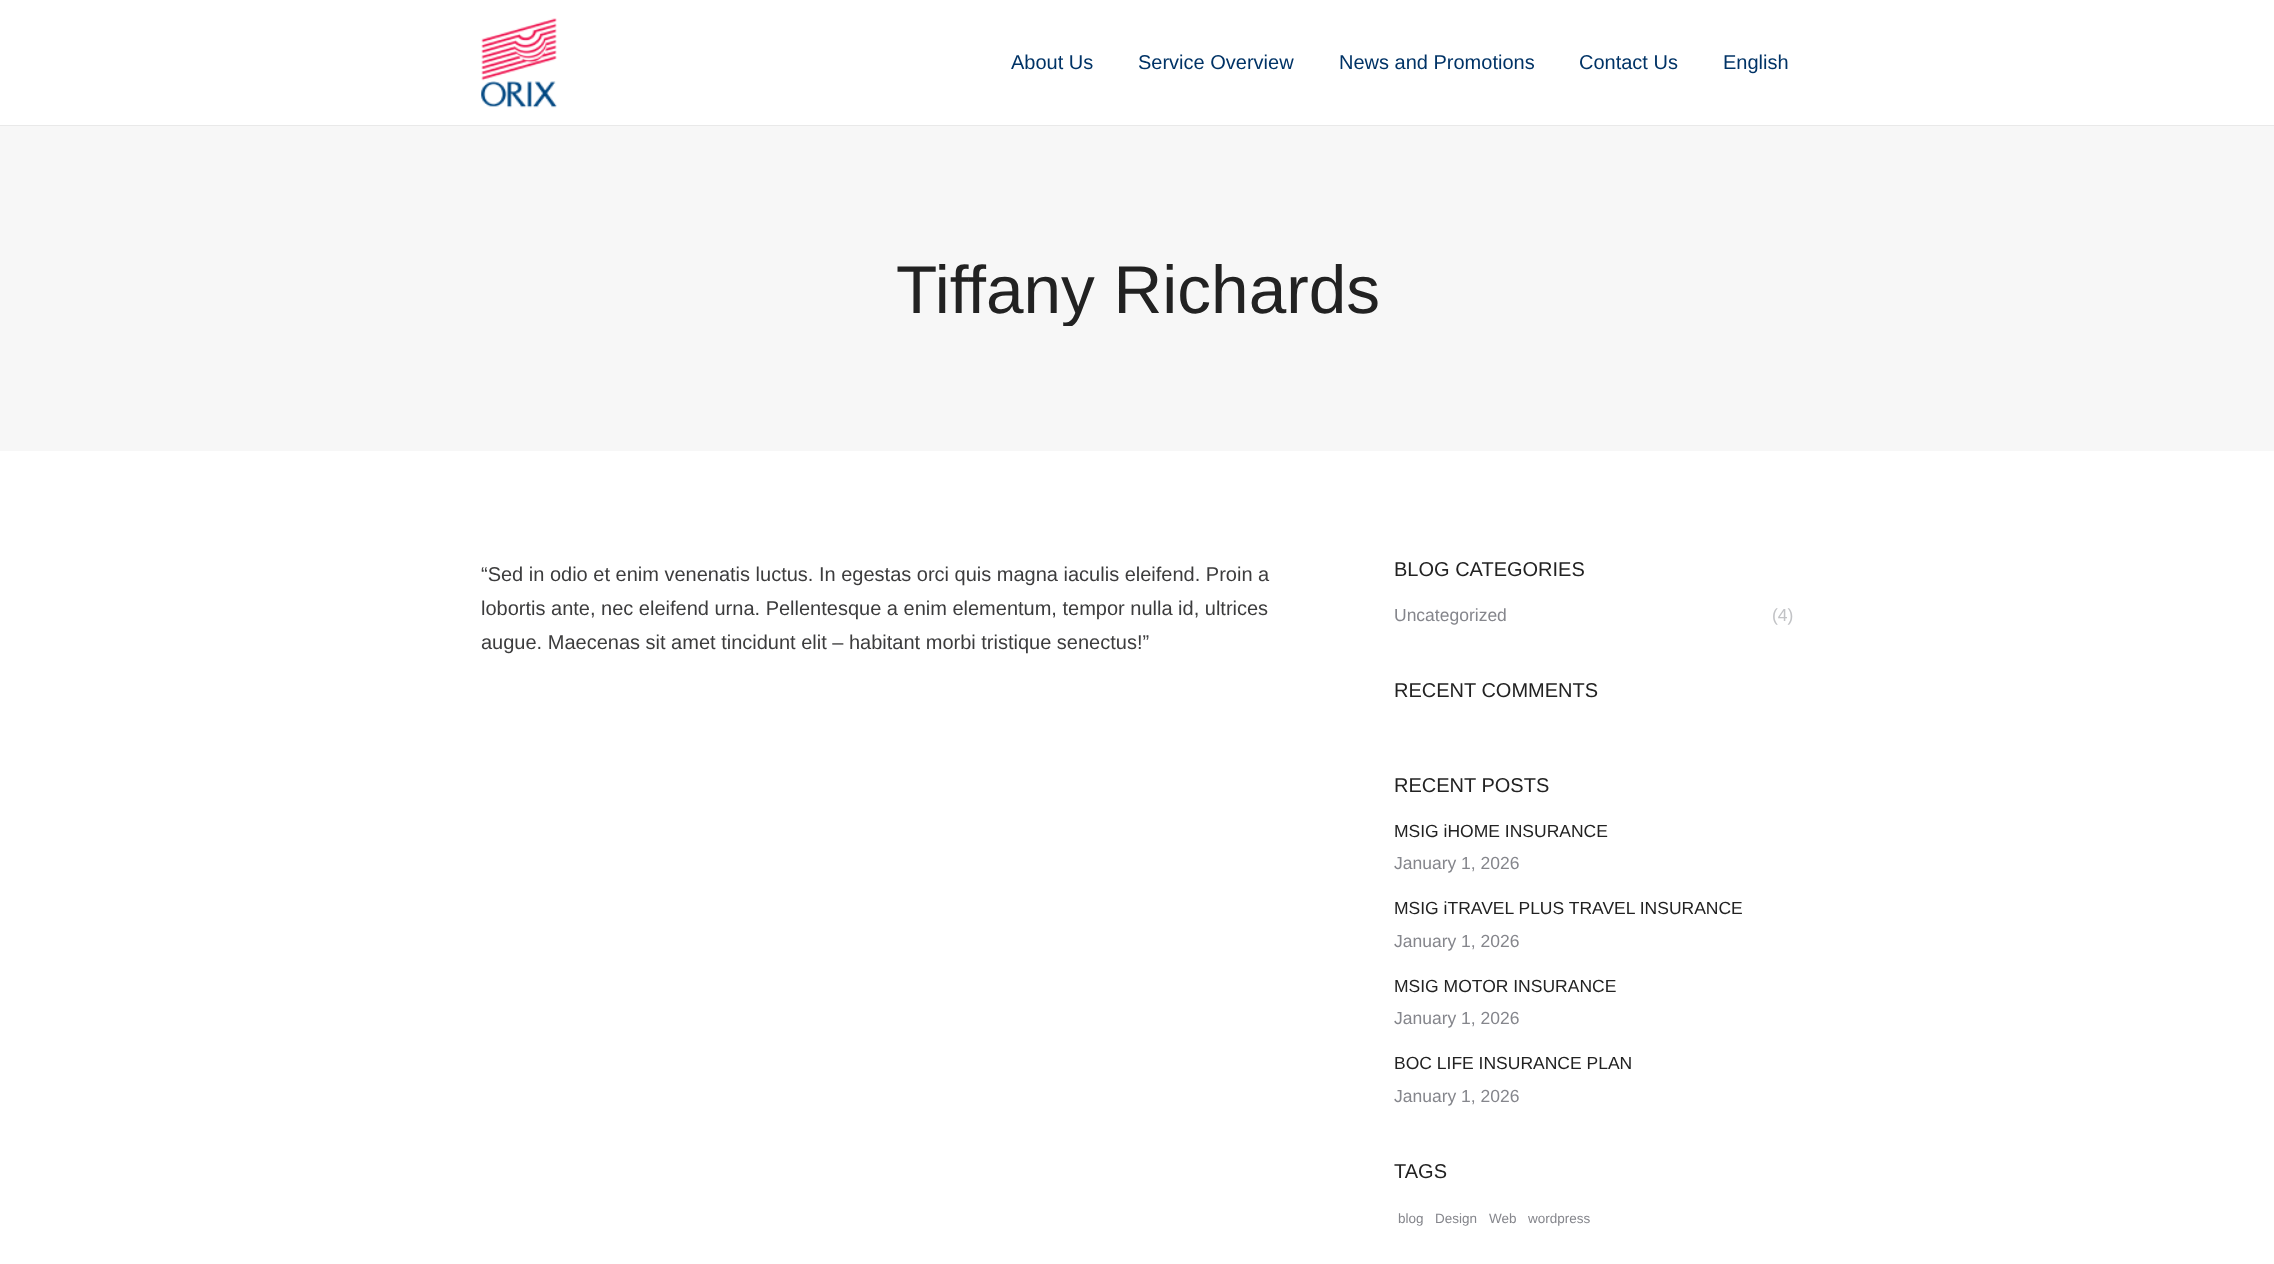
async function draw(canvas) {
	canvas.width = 2274;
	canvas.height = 1264;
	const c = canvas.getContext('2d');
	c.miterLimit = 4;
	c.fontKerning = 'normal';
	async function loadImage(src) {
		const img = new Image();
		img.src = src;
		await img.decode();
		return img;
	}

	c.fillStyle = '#fff';
	c.fillRect(0, 0, 2274, 1264);
	c.fillStyle = '#e9e9e9';
	c.fillRect(0, 125, 2274, 1);
	c.drawImage(await loadImage('img1.png'), 481, 18, 76, 90);
	c.font = '20px Liberation Sans';
	c.fillStyle = '#036';
	for (const [text, x, y] of [
		['About Us', 1011, 69],
		['Service Overview', 1138, 69],
		['News and Promotions', 1339, 69],
		['Contact Us', 1579, 69],
		['English', 1723, 69],
	]) {
		c.fillText(text, x, y);
	}
	c.fillStyle = '#f7f7f7';
	c.fillRect(0, 126, 2274, 325);
	c.save();
	c.beginPath();
	c.rect(895, 251, 485, 75);
	c.clip();
	c.font = '67.5px Liberation Sans';
	c.fillStyle = '#222';
	c.fillText('Tiffany Richards', 896, 313);
	c.restore();
	c.fillStyle = '#3c3c3d';
	for (const [text, x, y] of [
		['“Sed in odio et enim venenatis luctus. In egestas orci quis magna iaculis eleifend. Proin a', 481, 581],
		['lobortis ante, nec eleifend urna. Pellentesque a enim elementum, tempor nulla id, ultrices', 481, 615],
		['augue. Maecenas sit amet tincidunt elit – habitant morbi tristique senectus!”', 481, 649],
	]) {
		c.fillText(text, x, y);
	}
	c.fillStyle = '#222';
	c.fillText('BLOG CATEGORIES', 1394, 576);
	c.font = '17.5px Liberation Sans';
	c.fillStyle = '#85868c';
	c.fillText('Uncategorized', 1394, 621);
	c.fillStyle = '#c2c3c6';
	c.fillText('(4)', 1772, 621);
	c.font = '20px Liberation Sans';
	c.fillStyle = '#222';
	c.fillText('RECENT COMMENTS', 1394, 697);
	c.fillText('RECENT POSTS', 1394, 792);
	c.font = '17.5px Liberation Sans';
	c.fillText('MSIG iHOME INSURANCE', 1394, 837);
	c.fillStyle = '#85868c';
	c.fillText('January 1, 2026', 1394, 869);
	c.fillStyle = '#222';
	c.fillText('MSIG iTRAVEL PLUS TRAVEL INSURANCE', 1394, 914);
	c.fillStyle = '#85868c';
	c.fillText('January 1, 2026', 1394, 947);
	c.fillStyle = '#222';
	c.fillText('MSIG MOTOR INSURANCE', 1394, 992);
	c.fillStyle = '#85868c';
	c.fillText('January 1, 2026', 1394, 1024);
	c.fillStyle = '#222';
	c.fillText('BOC LIFE INSURANCE PLAN', 1394, 1069);
	c.fillStyle = '#85868c';
	c.fillText('January 1, 2026', 1394, 1102);
	c.font = '20px Liberation Sans';
	c.fillStyle = '#222';
	c.fillText('TAGS', 1394, 1178);
	c.font = '13.5px Liberation Sans';
	c.fillStyle = '#85868c';
	for (const [text, x, y] of [
		['blog', 1398, 1223],
		['Design', 1435, 1223],
		['Web', 1489, 1223],
		['wordpress', 1528, 1223],
	]) {
		c.fillText(text, x, y);
	}
}

draw(document.querySelector('canvas'));
